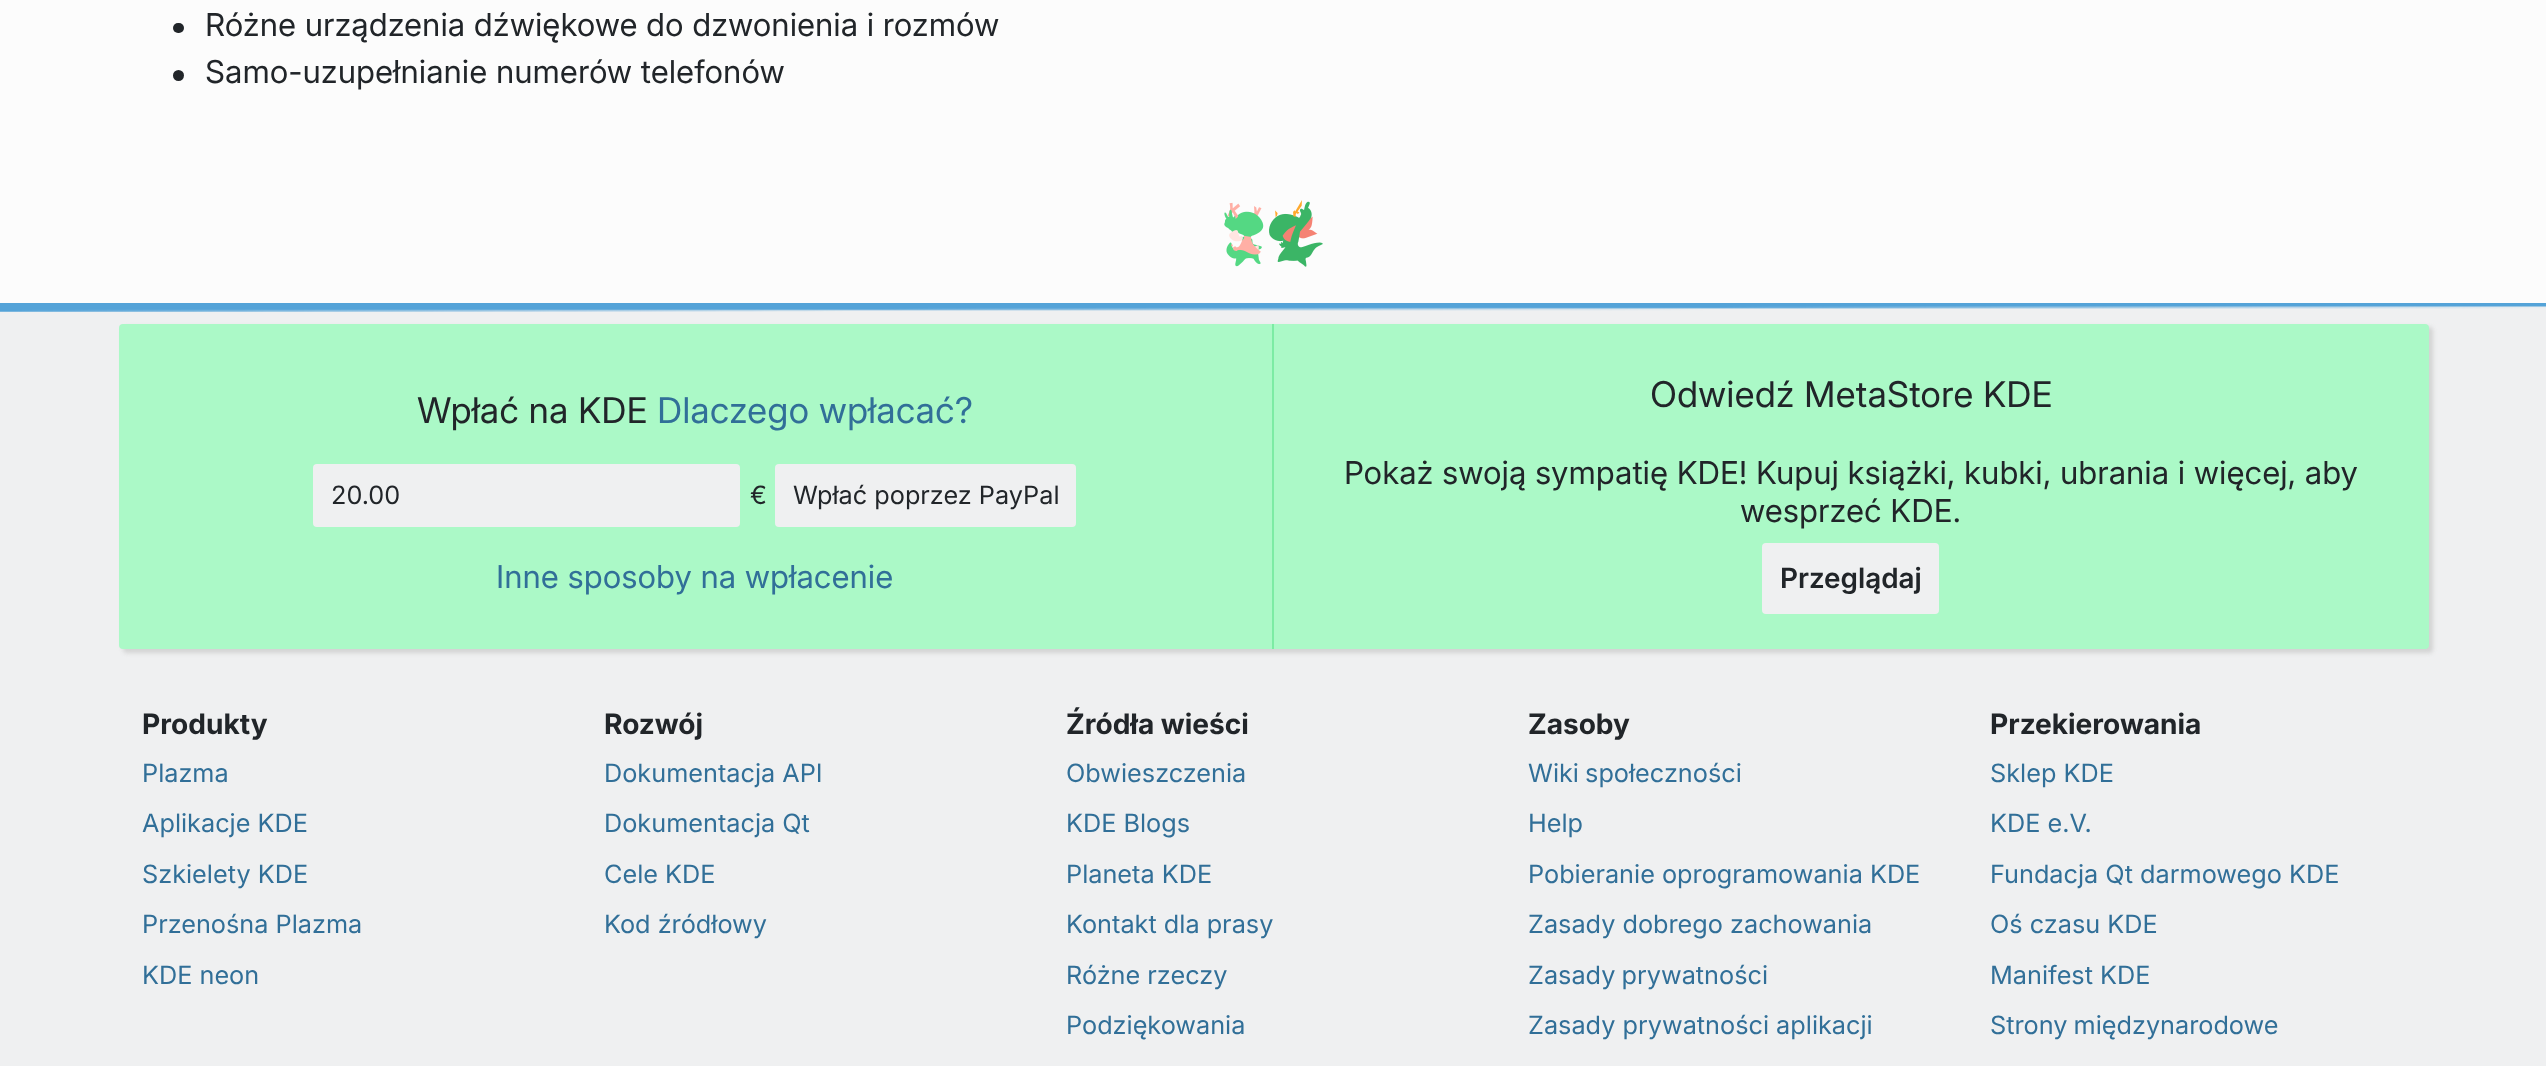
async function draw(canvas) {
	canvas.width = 2546;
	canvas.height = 1066;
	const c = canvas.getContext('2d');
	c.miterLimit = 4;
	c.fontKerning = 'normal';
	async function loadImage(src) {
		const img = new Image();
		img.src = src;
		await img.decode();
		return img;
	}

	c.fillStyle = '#fcfcfc';
	c.fillRect(0, 0, 2546, 1066);
	c.fillStyle = '#212529';
	c.beginPath();
	c.roundRect(173, 23, 11, 10, 5);
	c.fill();
	c.font = '31.5px Inter';
	c.fillText('Różne urządzenia dźwiękowe do dzwonienia i rozmów', 205, 36);
	c.beginPath();
	c.arc(178.5, 75.5, 5.5, 0, 2 * Math.PI);
	c.fill();
	c.fillText('Samo-uzupełnianie numerów telefonów', 205, 83);
	c.drawImage(await loadImage('img1.png'), 1224, 200, 99, 67);
	c.fillStyle = '#eff0f1';
	c.fillRect(0, 306, 2546, 760);
	c.drawImage(await loadImage('img2.png'), 0, 303, 2546, 9);
	c.fillStyle = '#cccccccc';
	c.filter = 'blur(2px)';
	c.beginPath();
	c.roundRect(123, 327, 2310, 326, 4);
	c.fill();
	c.filter = 'none';
	c.fillStyle = '#abf9c7';
	c.beginPath();
	c.roundRect(119, 324, 2310, 325, 4);
	c.fill();
	c.fillStyle = '#7ceca4';
	c.fillRect(1272, 324, 2, 325);
	c.font = '35.5px "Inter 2"';
	c.fillStyle = '#212529';
	c.fillText('Wpłać na KDE', 417, 423);
	c.fillStyle = '#316f98';
	c.fillText('Dlaczego wpłacać?', 657, 423);
	c.fillStyle = '#eff0f1';
	c.beginPath();
	c.roundRect(313, 464, 427, 63, 4);
	c.fill();
	c.font = '25.25px "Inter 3"';
	c.fillStyle = '#212529';
	c.fillText('20.00', 331, 504);
	c.fillText('€', 750, 504);
	c.fillStyle = '#eff0f1';
	c.beginPath();
	c.roundRect(775, 464, 301, 63, 4);
	c.fill();
	c.fillStyle = '#212529';
	c.fillText('Wpłać poprzez PayPal', 793, 504);
	c.font = '31.5px Inter';
	c.fillStyle = '#316f98';
	c.fillText('Inne sposoby na wpłacenie', 496, 588);
	c.font = '35.5px "Inter 2"';
	c.fillStyle = '#212529';
	c.fillText('Odwiedź MetaStore KDE', 1650, 407);
	c.font = '31.5px Inter';
	c.fillText('Pokaż swoją sympatię KDE! Kupuj książki, kubki, ubrania i więcej, aby', 1344, 484);
	c.fillText('wesprzeć KDE.', 1740, 522);
	c.fillStyle = '#eff0f1';
	c.beginPath();
	c.roundRect(1762, 543, 177, 71, 4);
	c.fill();
	c.font = '600 28px Inter';
	c.fillStyle = '#212529';
	c.fillText('Przeglądaj', 1780, 588);
	c.font = 'bold 28.25px Inter';
	c.fillText('Produkty', 142, 734);
	c.font = '25.25px "Inter 3"';
	c.fillStyle = '#316f98';
	for (const [text, x, y] of [
		['Plazma', 142, 782],
		['Aplikacje KDE', 142, 832],
		['Szkielety KDE', 142, 883],
		['Przenośna Plazma', 142, 933],
		['KDE neon', 142, 984],
	]) {
		c.fillText(text, x, y);
	}
	c.font = 'bold 28.25px Inter';
	c.fillStyle = '#212529';
	c.fillText('Rozwój', 604, 734);
	c.font = '25.25px "Inter 3"';
	c.fillStyle = '#316f98';
	for (const [text, x, y] of [
		['Dokumentacja API', 604, 782],
		['Dokumentacja Qt', 604, 832],
		['Cele KDE', 604, 883],
		['Kod źródłowy', 604, 933],
	]) {
		c.fillText(text, x, y);
	}
	c.font = 'bold 28.25px Inter';
	c.fillStyle = '#212529';
	c.fillText('Źródła wieści', 1066, 734);
	c.font = '25.25px "Inter 3"';
	c.fillStyle = '#316f98';
	for (const [text, x, y] of [
		['Obwieszczenia', 1066, 782],
		['KDE Blogs', 1066, 832],
		['Planeta KDE', 1066, 883],
		['Kontakt dla prasy', 1066, 933],
		['Różne rzeczy', 1066, 984],
		['Podziękowania', 1066, 1034],
	]) {
		c.fillText(text, x, y);
	}
	c.font = 'bold 28.25px Inter';
	c.fillStyle = '#212529';
	c.fillText('Zasoby', 1528, 734);
	c.wordSpacing = '-1px';
	c.font = '25.25px "Inter 3"';
	c.fillStyle = '#316f98';
	c.fillText('Wiki społeczności', 1528, 782);
	c.wordSpacing = '0px';
	for (const [text, x, y] of [
		['Help', 1528, 832],
		['Pobieranie oprogramowania KDE', 1528, 883],
		['Zasady dobrego zachowania', 1528, 933],
	]) {
		c.fillText(text, x, y);
	}
	c.wordSpacing = '-1px';
	c.fillText('Zasady prywatności', 1528, 984);
	c.wordSpacing = '0px';
	c.fillText('Zasady prywatności aplikacji', 1528, 1034);
	c.font = 'bold 28.25px Inter';
	c.fillStyle = '#212529';
	c.fillText('Przekierowania', 1990, 734);
	c.font = '25.25px "Inter 3"';
	c.fillStyle = '#316f98';
	for (const [text, x, y] of [
		['Sklep KDE', 1990, 782],
		['KDE e.V.', 1990, 832],
		['Fundacja Qt darmowego KDE', 1990, 883],
		['Oś czasu KDE', 1990, 933],
		['Manifest KDE', 1990, 984],
	]) {
		c.fillText(text, x, y);
	}
	c.wordSpacing = '-1px';
	c.fillText('Strony międzynarodowe', 1990, 1034);
}

draw(document.querySelector('canvas'));
